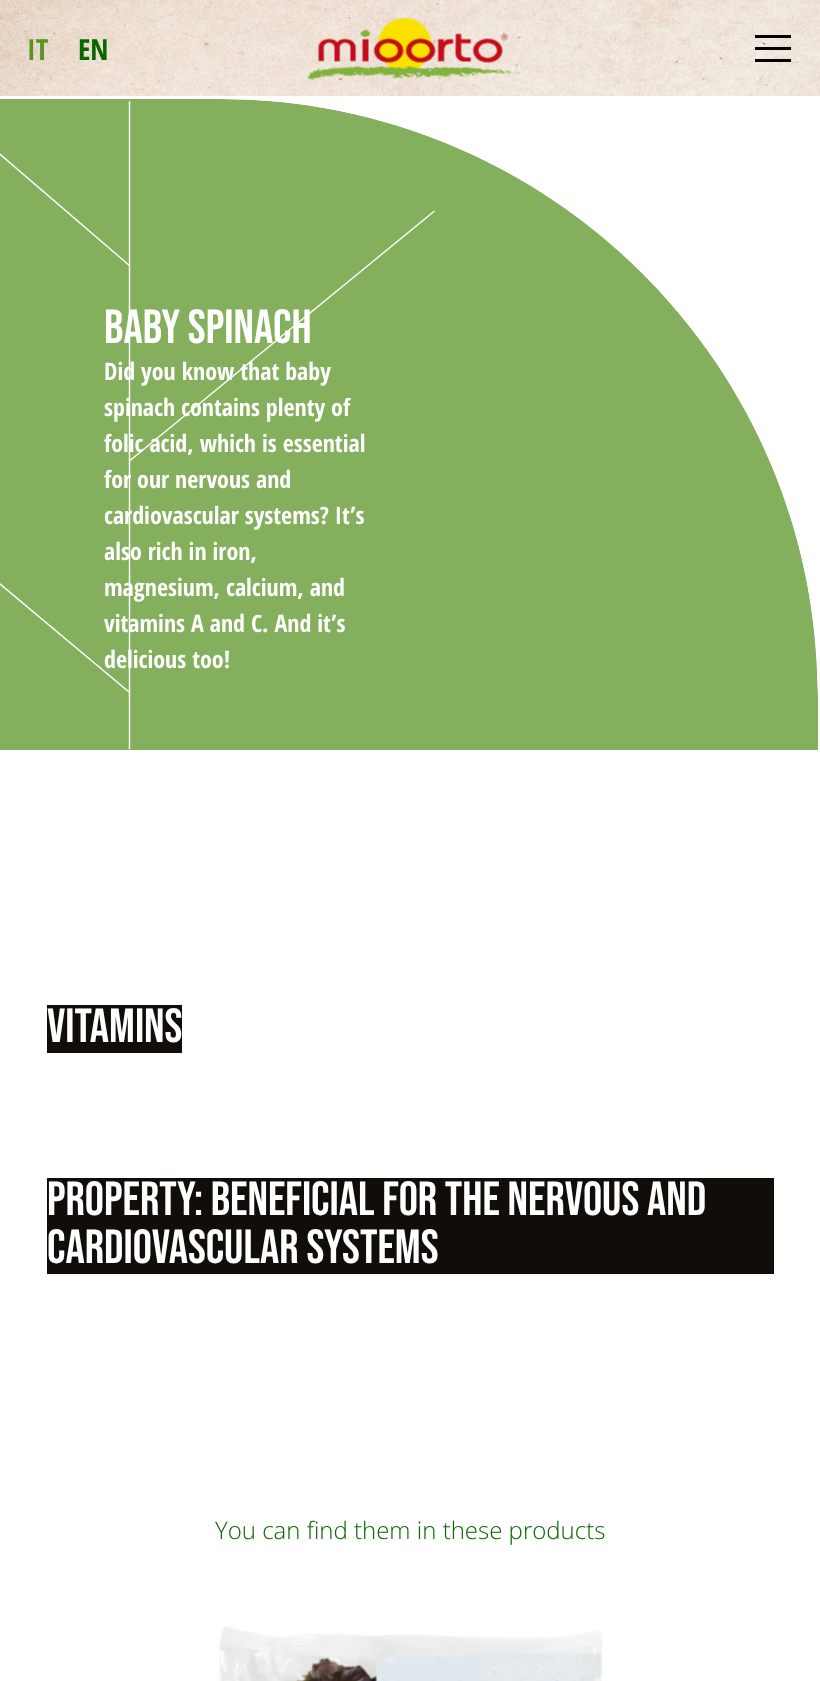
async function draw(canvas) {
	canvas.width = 820;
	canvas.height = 1681;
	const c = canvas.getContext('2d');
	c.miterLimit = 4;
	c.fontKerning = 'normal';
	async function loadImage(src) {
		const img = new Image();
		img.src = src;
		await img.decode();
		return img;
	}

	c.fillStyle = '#fff';
	c.fillRect(0, 0, 820, 1681);
	c.drawImage(await loadImage('img1.png'), 0, 0, 820, 96);
	c.font = 'bold 29px Open Sans Condensed';
	c.fillStyle = '#589324';
	c.fillText('IT', 27, 60);
	c.fillStyle = '#096700';
	c.fillText('EN', 78, 60);
	c.drawImage(await loadImage('img2.png'), 307, 18, 214, 62);
	for (const [x, y, w, h, color] of [
		[755, 35, 36, 3, '#000'],
		[755, 47, 36, 3, '#000'],
		[755, 59, 36, 3, '#000'],
	]) {
		c.fillStyle = color;
		c.fillRect(x, y, w, h);
	}
	c.fillStyle = '#84af5d';
	c.beginPath();
	c.roundRect(0, 99, 818, 651, [0, 597, 0, 0]);
	c.fill();
	c.beginPath();
	c.moveTo(129.5, 749);
	c.lineTo(129.5, 101.5);
	c.strokeStyle = '#fff';
	c.lineWidth = 1.5;
	c.stroke();
	c.beginPath();
	c.moveTo(434.5, 211);
	c.lineTo(130, 460.5);
	c.stroke();
	c.beginPath();
	c.moveTo(-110.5, 491.5);
	c.lineTo(129, 692);
	c.stroke();
	c.beginPath();
	c.moveTo(-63, 100);
	c.lineTo(130, 266);
	c.stroke();
	c.fillStyle = '#fff';
	c.beginPath();
	c.moveTo(0, 96);
	c.lineTo(220, 96);
	c.bezierCurveTo(552, 96, 820, 365, 820, 696);
	c.lineTo(820, 750);
	c.lineTo(0, 750);
	c.closePath();
	c.moveTo(0, 99);
	c.lineTo(220, 99);
	c.bezierCurveTo(550, 99, 818, 366, 818, 696);
	c.lineTo(818, 750);
	c.lineTo(0, 750);
	c.closePath();
	c.fill('evenodd');
	c.font = '48px Bebas Neue';
	c.fillText('Baby Spinach', 104, 343);
	c.font = 'bold 24px Open Sans Condensed';
	for (const [text, x, y] of [
		['Did you know that baby', 104, 380],
		['spinach contains plenty of', 104, 416],
		['folic acid, which is essential', 104, 452],
		['for our nervous and', 104, 488],
		['cardiovascular systems? It’s', 104, 524],
		['also rich in iron,', 104, 560],
		['magnesium, calcium, and', 104, 596],
		['vitamins A and C. And it’s', 104, 632],
		['delicious too!', 104, 668],
	]) {
		c.fillText(text, x, y);
	}
	c.fillStyle = '#110d08';
	c.fillRect(47, 1005, 135, 48);
	c.font = '48px Bebas Neue';
	c.fillStyle = '#fff';
	c.fillText('Vitamins', 47, 1042);
	c.fillStyle = '#110d08';
	c.fillRect(47, 1178, 727, 96);
	c.fillStyle = '#fff';
	c.fillText('Property: beneficial for the nervous and', 47, 1215);
	c.fillText('cardiovascular systems', 47, 1263);
	c.font = '300 24px Open Sans';
	c.fillStyle = '#096700';
	c.fillText('You can find them in these products', 215, 1539);
	c.drawImage(await loadImage('img3.png'), 219, 1626, 384, 55);
}

draw(document.querySelector('canvas'));
